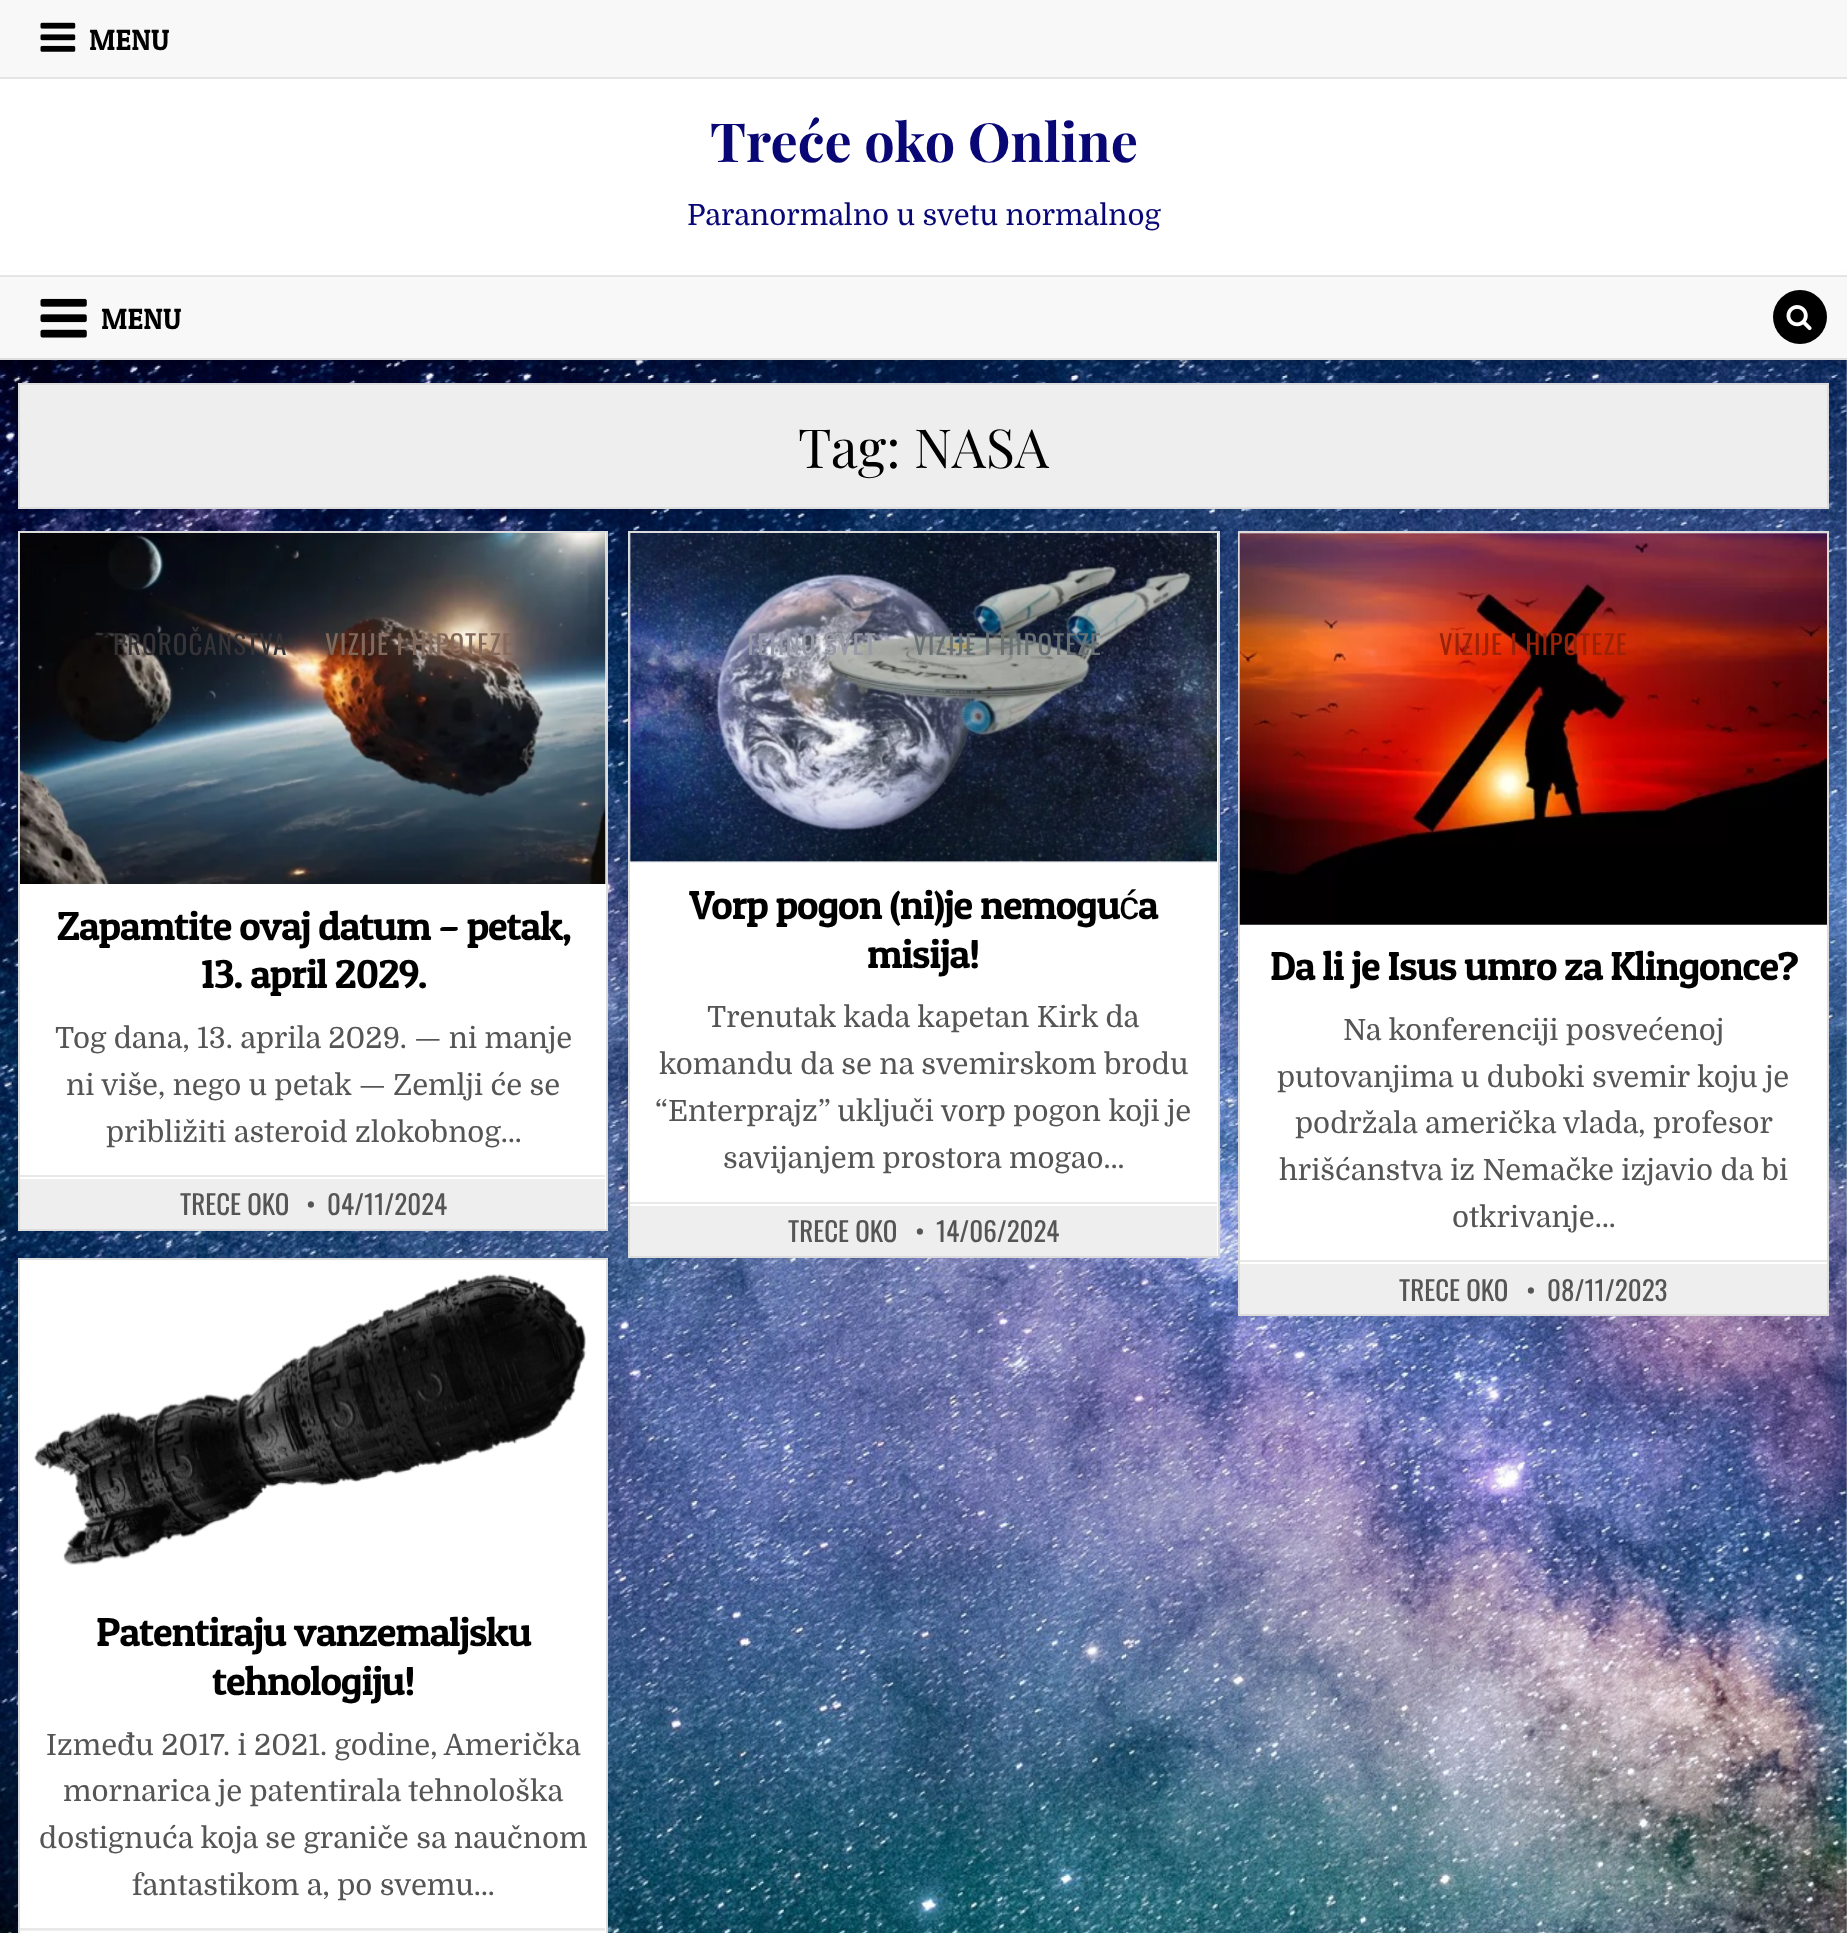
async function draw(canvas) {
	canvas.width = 1847;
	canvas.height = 1933;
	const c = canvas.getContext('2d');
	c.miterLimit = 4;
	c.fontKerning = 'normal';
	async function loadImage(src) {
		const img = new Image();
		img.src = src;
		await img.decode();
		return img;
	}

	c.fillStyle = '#fff';
	c.fillRect(0, 0, 1847, 1933);
	c.drawImage(await loadImage('img1.png'), 0, 360, 1847, 1573);
	c.fillStyle = '#f8f8f8';
	c.fillRect(0, 0, 1847, 77);
	c.fillStyle = '#e5e5e5';
	c.fillRect(0, 77, 1847, 2);
	c.drawImage(await loadImage('img2.png'), 40, 22, 36, 30);
	c.font = '29.25px Patua One';
	c.fillStyle = '#000';
	c.fillText('MENU', 89, 50);
	c.fillStyle = '#00000026';
	c.filter = 'blur(3.5px)';
	c.beginPath();
	c.rect(0, 277, 1847, 85);
	c.fill();
	c.filter = 'none';
	c.fillStyle = '#fff';
	c.fillRect(0, 272, 1847, 3);
	c.font = 'bold 54px Playfair Display';
	c.fillStyle = '#080775';
	c.fillText('Treće oko Online', 710, 162);
	c.font = '29.25px Domine';
	c.fillText('Paranormalno u svetu normalnog', 687, 225);
	for (const [x, y, w, h, color] of [
		[0, 277, 1847, 81, '#f8f8f8'],
		[0, 275, 1847, 2, '#e5e5e5'],
		[0, 358, 1847, 2, '#ddd'],
	]) {
		c.fillStyle = color;
		c.fillRect(x, y, w, h);
	}
	c.drawImage(await loadImage('img3.png'), 40, 298, 47, 40);
	c.font = '29.25px Patua One';
	c.fillStyle = '#000';
	c.fillText('MENU', 101, 329);
	c.beginPath();
	c.arc(1800, 317, 27, 0, 2 * Math.PI);
	c.fill();
	c.drawImage(await loadImage('img4.png'), 1786, 305, 26, 26);
	c.fillStyle = '#eee';
	c.beginPath();
	c.rect(19, 384, 1809, 124);
	c.fill();
	c.strokeStyle = '#ddd';
	c.lineWidth = 2;
	c.stroke();
	c.font = '54px Playfair Display';
	c.fillStyle = '#000';
	c.fillText('Tag: NASA', 798, 468);
	c.fillStyle = '#fff';
	c.beginPath();
	c.rect(19, 532, 588, 698);
	c.fill();
	c.stroke();
	c.drawImage(await loadImage('img5.png'), 20, 533, 586, 351);
	c.letterSpacing = '1.1px';
	c.font = '27px Oswald';
	c.fillStyle = '#353336';
	c.fillText('PROROČANSTVA', 113, 655);
	c.fillStyle = '#83695b';
	c.fillText('VIZIJE I HIPOTEZE', 325, 655);
	c.letterSpacing = '-1.1px';
	c.font = '40.5px Patua One';
	c.fillStyle = '#000';
	c.fillText('Zapamtite ovaj datum – petak,', 57, 940);
	c.fillText('13. april 2029.', 201, 988);
	c.letterSpacing = '0px';
	c.font = '29.25px Domine';
	c.fillStyle = '#555';
	for (const [text, x, y] of [
		['Tog dana, 13. aprila 2029. — ni manje', 55, 1048],
		['ni više, nego u petak — Zemlji će se', 66, 1095],
		['približiti asteroid zlokobnog…', 106, 1142],
	]) {
		c.fillText(text, x, y);
	}
	c.fillStyle = '#eee';
	c.fillRect(20, 1179, 585, 50);
	c.fillStyle = '#e8e8e8';
	c.fillRect(20, 1175, 585, 2);
	c.font = '27px Oswald';
	c.fillStyle = '#555';
	for (const [text, x, y] of [
		['TRECE OKO', 180, 1215],
		['•', 306, 1215],
		['04/11/2024', 327, 1215],
	]) {
		c.fillText(text, x, y);
	}
	c.fillStyle = '#fff';
	c.beginPath();
	c.rect(629, 532, 590, 725);
	c.fill();
	c.stroke();
	c.drawImage(await loadImage('img6.png'), 629, 533, 588, 330);
	c.letterSpacing = '1.1px';
	c.fillStyle = '#9699a6';
	c.fillText('TEHNO SVET', 745, 655);
	c.fillStyle = '#6a7276';
	c.fillText('VIZIJE I HIPOTEZE', 913, 655);
	c.letterSpacing = '-1.1px';
	c.font = '40.5px Patua One';
	c.fillStyle = '#000';
	c.fillText('Vorp pogon (ni)je nemogu', 689, 919);
	c.font = '40.5px Liberation Sans';
	c.fillText('ć', 1119, 919);
	c.font = '40.5px Patua One';
	c.fillText('a', 1138, 919);
	c.fillText('misija!', 867, 968);
	c.letterSpacing = '0px';
	c.font = '29.25px Domine';
	c.fillStyle = '#555';
	for (const [text, x, y] of [
		['Trenutak kada kapetan Kirk da', 707, 1027],
		['komandu da se na svemirskom brodu', 659, 1074],
		['“Enterprajz” uključi vorp pogon koji je', 655, 1121],
		['savijanjem prostora mogao…', 723, 1168],
	]) {
		c.fillText(text, x, y);
	}
	c.fillStyle = '#eee';
	c.fillRect(630, 1206, 587, 50);
	c.fillStyle = '#e8e8e8';
	c.fillRect(630, 1202, 587, 2);
	c.font = '27px Oswald';
	c.fillStyle = '#555';
	for (const [text, x, y] of [
		['TRECE OKO', 788, 1242],
		['•', 915, 1242],
		['14/06/2024', 936, 1242],
	]) {
		c.fillText(text, x, y);
	}
	c.fillStyle = '#fff';
	c.fillRect(1240, 533, 587, 727);
	c.strokeRect(1239, 532, 589, 783);
	c.drawImage(await loadImage('img7.png'), 1239, 533, 588, 392);
	c.letterSpacing = '1.1px';
	c.fillStyle = '#9c2207';
	c.fillText('VIZIJE I HIPOTEZE', 1439, 655);
	c.letterSpacing = '-1.1px';
	c.font = '40.5px Patua One';
	c.fillStyle = '#000';
	c.fillText('Da li je Isus umro za Klingonce?', 1270, 980);
	c.letterSpacing = '0px';
	c.font = '29.25px Domine';
	c.fillStyle = '#555';
	for (const [text, x, y] of [
		['Na konferenciji posvećenoj', 1343, 1040],
		['putovanjima u duboki svemir koju je', 1277, 1087],
		['podržala američka vlada, profesor', 1295, 1133],
		['hrišćanstva iz Nemačke izjavio da bi', 1279, 1180],
		['otkrivanje…', 1452, 1227],
	]) {
		c.fillText(text, x, y);
	}
	for (const [x, y, w, h, color] of [
		[1240, 1264, 587, 50, '#eee'],
		[1240, 1260, 587, 2, '#e8e8e8'],
		[1240, 1262, 587, 2, '#fff'],
	]) {
		c.fillStyle = color;
		c.fillRect(x, y, w, h);
	}
	c.font = '27px Oswald';
	c.fillStyle = '#555';
	for (const [text, x, y] of [
		['TRECE OKO', 1399, 1301],
		['•', 1526, 1301],
		['08/11/2023', 1547, 1301],
	]) {
		c.fillText(text, x, y);
	}
	c.fillStyle = '#fff';
	c.beginPath();
	c.rect(19, 1259, 588, 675);
	c.fill();
	c.stroke();
	c.drawImage(await loadImage('img8.png'), 34, 1273, 552, 292);
	c.letterSpacing = '-1.1px';
	c.font = '40.5px Patua One';
	c.fillStyle = '#000';
	c.fillText('Patentiraju vanzemaljsku', 96, 1646);
	c.fillText('tehnologiju!', 212, 1695);
	c.letterSpacing = '0px';
	c.font = '29.25px Domine';
	c.fillStyle = '#555';
	for (const [text, x, y] of [
		['Između 2017. i 2021. godine, Američka', 46, 1755],
		['mornarica je patentirala tehnološka', 63, 1801],
		['dostignuća koja se graniče sa naučnom', 39, 1848],
		['fantastikom a, po svemu…', 132, 1895],
	]) {
		c.fillText(text, x, y);
	}
	c.fillStyle = '#eee';
	c.fillRect(20, 1930, 585, 1);
	c.fillStyle = '#e8e8e8';
	c.fillRect(20, 1928, 585, 2);
}

draw(document.querySelector('canvas'));
